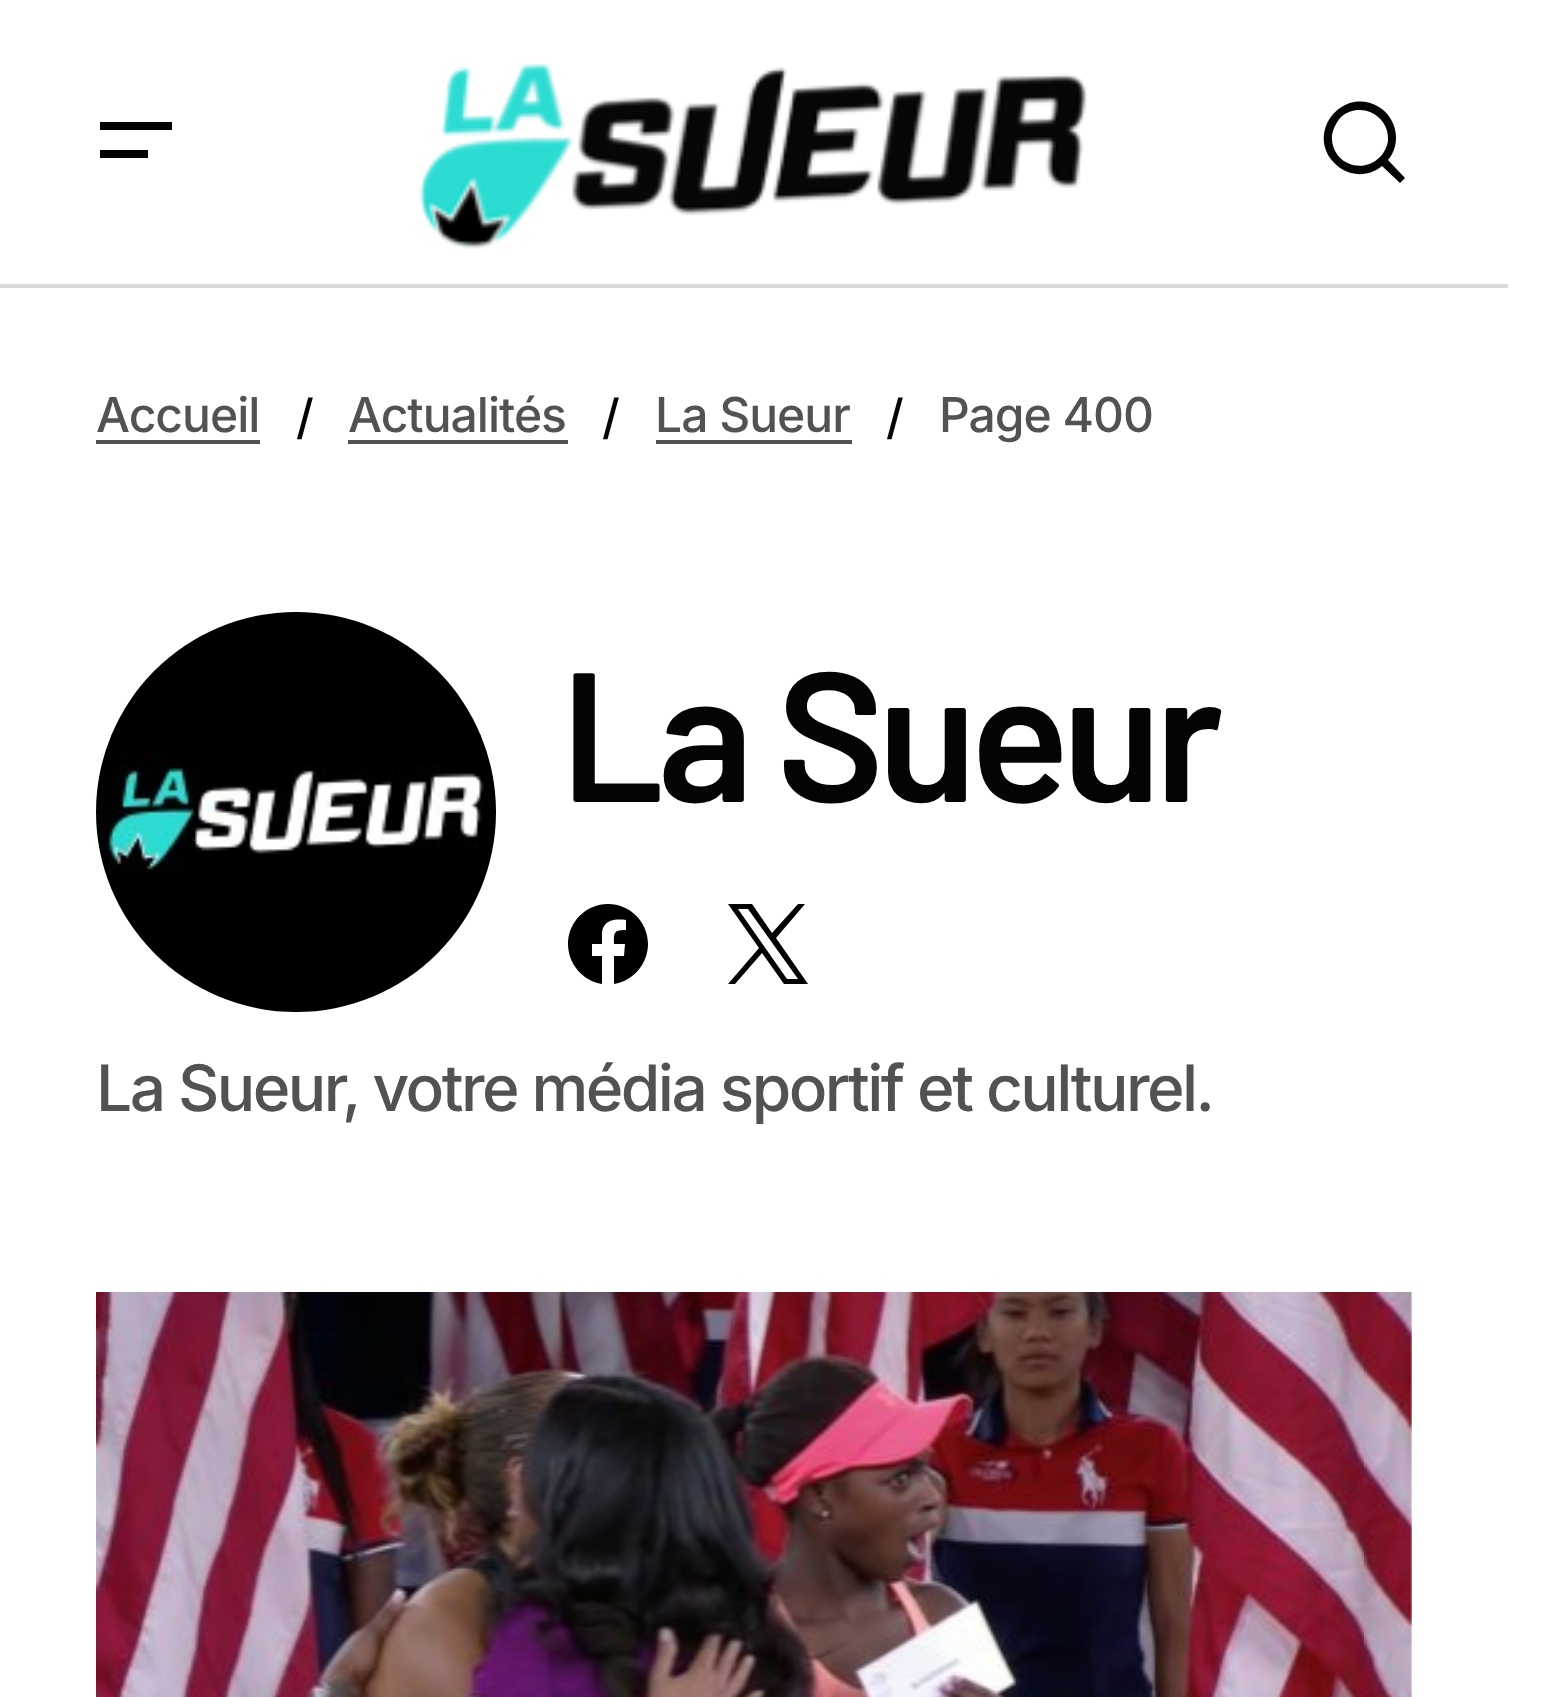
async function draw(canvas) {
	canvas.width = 1566;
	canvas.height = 1697;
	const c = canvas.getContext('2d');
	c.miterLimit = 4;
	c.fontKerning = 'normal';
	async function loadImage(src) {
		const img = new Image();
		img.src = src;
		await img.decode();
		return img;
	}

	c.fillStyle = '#fff';
	c.fillRect(0, 0, 1566, 1697);
	c.fillStyle = '#040404';
	c.beginPath();
	c.moveTo(100, 122);
	c.lineTo(172, 122);
	c.lineTo(172, 130);
	c.lineTo(100, 130);
	c.closePath();
	c.moveTo(100, 150);
	c.lineTo(148, 150);
	c.lineTo(148, 158);
	c.lineTo(100, 158);
	c.closePath();
	c.fill();
	c.drawImage(await loadImage('img1.png'), 419, 63, 668, 186);
	c.beginPath();
	c.moveTo(1388, 160);
	c.lineTo(1405, 178);
	c.lineTo(1400, 183);
	c.lineTo(1382, 166);
	c.bezierCurveTo(1374, 173, 1362, 176, 1351, 173);
	c.bezierCurveTo(1343, 171, 1335, 165, 1330, 158);
	c.bezierCurveTo(1309, 126, 1346, 87, 1379, 107);
	c.bezierCurveTo(1397, 118, 1402, 144, 1388, 160);
	c.closePath();
	c.moveTo(1380, 157);
	c.bezierCurveTo(1384, 153, 1387, 147, 1388, 141);
	c.bezierCurveTo(1390, 115, 1359, 100, 1340, 118);
	c.bezierCurveTo(1336, 123, 1333, 129, 1332, 135);
	c.bezierCurveTo(1330, 162, 1361, 176, 1380, 157);
	c.closePath();
	c.fill();
	c.fillStyle = '#d9d9d9';
	c.fillRect(0, 284, 1508, 4);
	c.letterSpacing = '-1px';
	c.font = '500 48px Inter';
	c.fillStyle = '#525252';
	c.fillText('Accueil', 96, 432);
	c.fillRect(96, 440, 164, 4);
	c.fillStyle = '#040404';
	c.fillText('/', 296, 434);
	c.fillStyle = '#525252';
	c.fillText('Actualités', 348, 432);
	c.fillRect(348, 440, 220, 4);
	c.fillStyle = '#040404';
	c.fillText('/', 602, 434);
	c.fillStyle = '#525252';
	c.fillText('La Sueur', 655, 432);
	c.fillRect(656, 440, 196, 4);
	c.fillStyle = '#040404';
	c.fillText('/', 886, 434);
	c.fillStyle = '#525252';
	c.fillText('Page 400', 939, 432);
	c.drawImage(await loadImage('img2.png'), 96, 612, 400, 400);
	c.letterSpacing = '-7.25px';
	c.font = '600 184px Barlow';
	c.fillStyle = '#040404';
	c.fillText('La Sueur', 560, 802);
	c.fillStyle = '#000';
	c.beginPath();
	c.moveTo(608, 904);
	c.bezierCurveTo(586, 904, 568, 922, 568, 944);
	c.bezierCurveTo(568, 964, 583, 981, 602, 984);
	c.lineTo(602, 956);
	c.lineTo(592, 956);
	c.lineTo(592, 944);
	c.lineTo(602, 944);
	c.lineTo(602, 932);
	c.bezierCurveTo(604, 919, 616, 919, 626, 920);
	c.lineTo(626, 930);
	c.bezierCurveTo(613, 930, 614, 933, 614, 944);
	c.lineTo(625, 944);
	c.lineTo(624, 956);
	c.lineTo(614, 956);
	c.lineTo(614, 984);
	c.bezierCurveTo(633, 981, 648, 964, 648, 944);
	c.bezierCurveTo(648, 922, 630, 904, 608, 904);
	c.closePath();
	c.fill();
	c.beginPath();
	c.moveTo(776, 938);
	c.lineTo(805, 904);
	c.lineTo(798, 904);
	c.lineTo(772, 933);
	c.lineTo(752, 904);
	c.lineTo(728, 904);
	c.lineTo(759, 948);
	c.lineTo(728, 984);
	c.lineTo(735, 984);
	c.lineTo(762, 953);
	c.lineTo(784, 984);
	c.lineTo(808, 984);
	c.closePath();
	c.moveTo(766, 949);
	c.lineTo(738, 909);
	c.lineTo(748, 909);
	c.lineTo(798, 979);
	c.lineTo(787, 979);
	c.closePath();
	c.fill();
	c.letterSpacing = '-2.55px';
	c.font = '500 64px Inter';
	c.fillStyle = '#525252';
	c.fillText('La Sueur, votre média sportif et culturel.', 96, 1111);
	c.drawImage(await loadImage('img3.png'), 96, 1292, 1316, 405);
}

draw(document.querySelector('canvas'));
